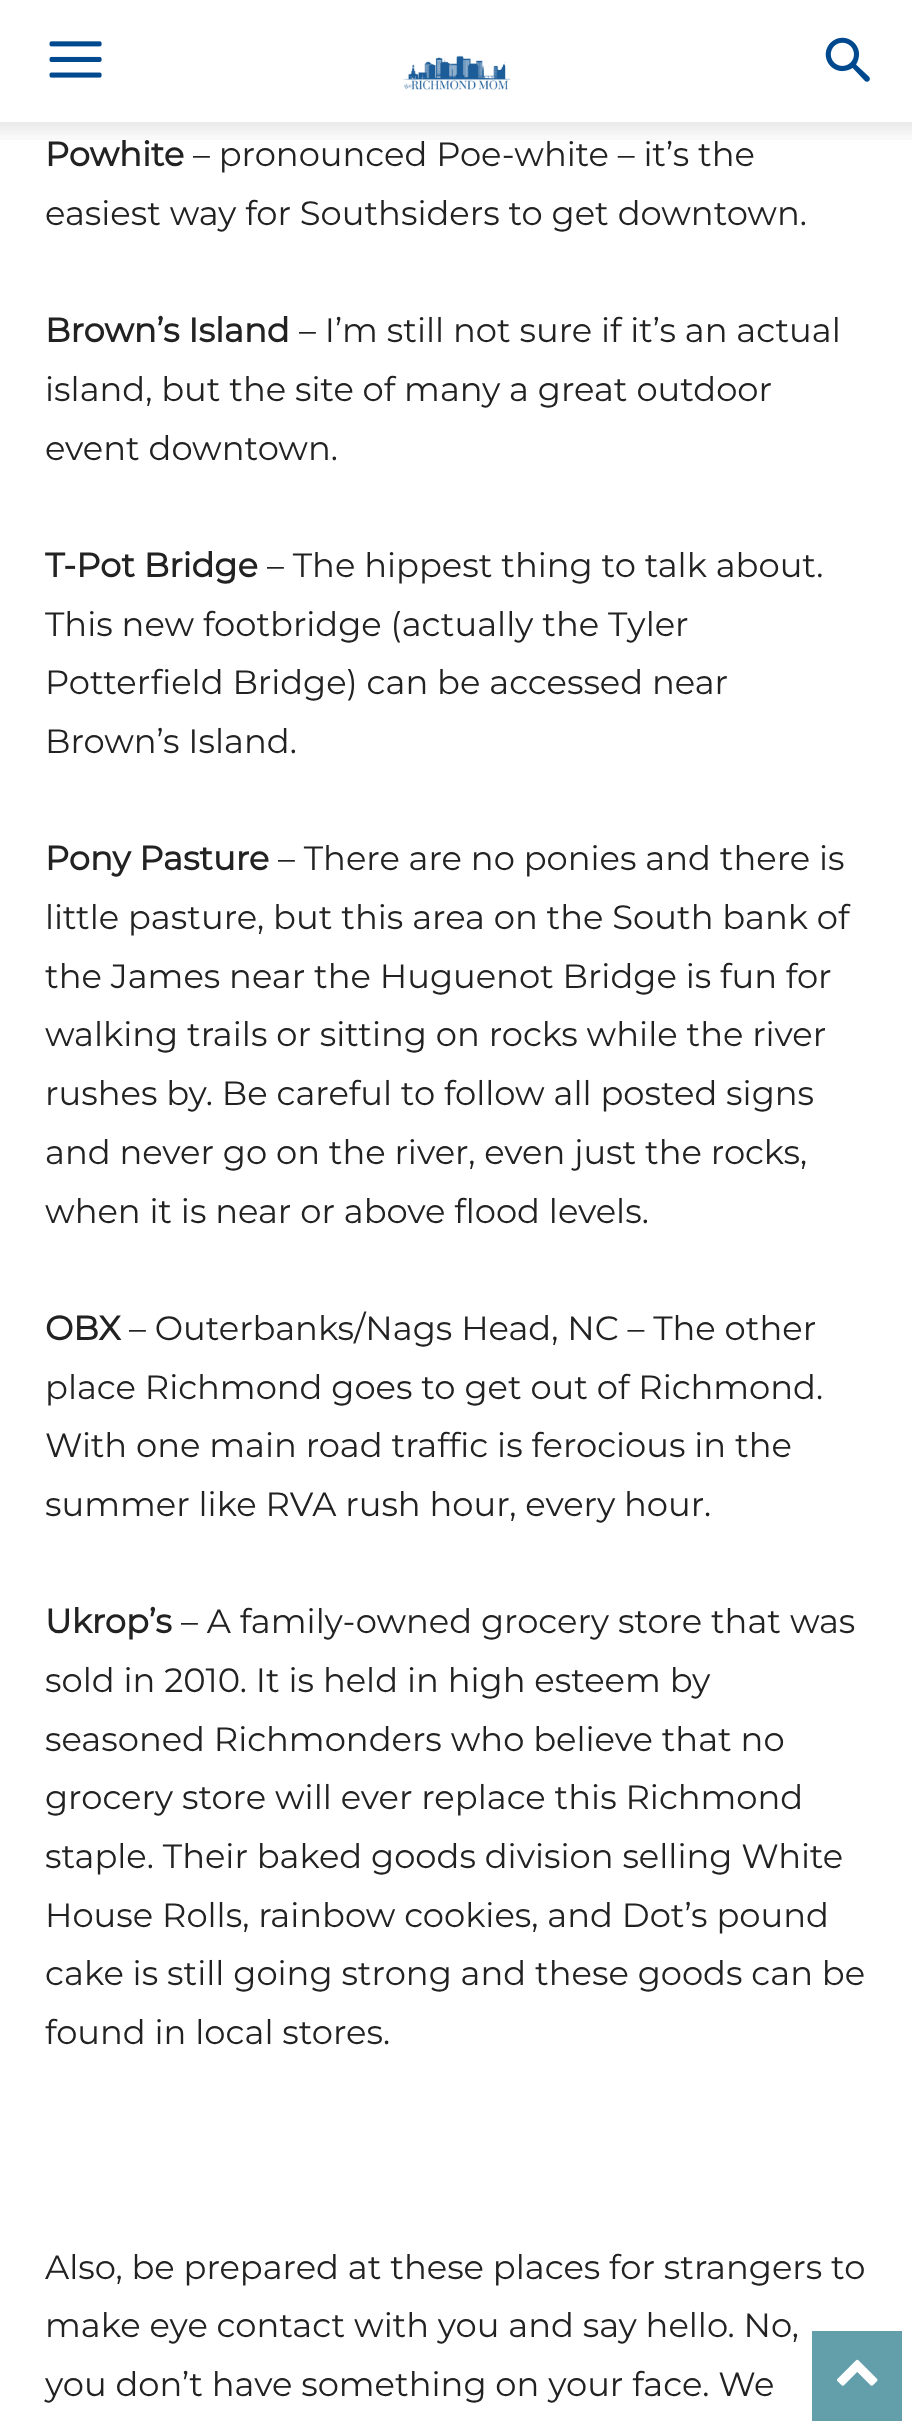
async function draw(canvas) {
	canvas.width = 912;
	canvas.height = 2428;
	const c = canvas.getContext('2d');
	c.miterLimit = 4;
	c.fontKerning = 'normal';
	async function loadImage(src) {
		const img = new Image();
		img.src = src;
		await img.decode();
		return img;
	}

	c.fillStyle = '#fff';
	c.fillRect(0, 0, 912, 2428);
	c.drawImage(await loadImage('img1.png'), 49, 41, 53, 37);
	c.drawImage(await loadImage('img2.png'), 403, 55, 108, 35);
	c.drawImage(await loadImage('img3.png'), 825, 37, 45, 45);
	c.drawImage(await loadImage('img4.png'), 0, 122, 912, 18);
	c.font = 'bold 33.75px Montserrat';
	c.fillStyle = '#222';
	c.fillText('Powhite', 45, 166);
	c.font = '100 33.75px Montserrat';
	c.fillText('– pronounced Poe-white – it’s the', 193, 166);
	c.fillText('easiest way for Southsiders to get downtown.', 45, 225);
	c.font = 'bold 33.75px Montserrat';
	c.fillText('Brown’s Island', 45, 342);
	c.font = '100 33.75px Montserrat';
	for (const [text, x, y] of [
		['– I’m still not sure if it’s an actual', 299, 342],
		['island, but the site of many a great outdoor', 45, 401],
		['event downtown.', 45, 460],
	]) {
		c.fillText(text, x, y);
	}
	c.font = 'bold 33.75px Montserrat';
	c.fillText('T-Pot Bridge', 45, 577);
	c.font = '100 33.75px Montserrat';
	for (const [text, x, y] of [
		['– The hippest thing to talk about.', 267, 577],
		['This new footbridge (actually the Tyler', 45, 636],
		['Potterfield Bridge) can be accessed near', 45, 694],
		['Brown’s Island.', 45, 753],
	]) {
		c.fillText(text, x, y);
	}
	c.font = 'bold 33.75px Montserrat';
	c.fillText('Pony Pasture', 45, 870);
	c.font = '100 33.75px Montserrat';
	for (const [text, x, y] of [
		['– There are no ponies and there is', 278, 870],
		['little pasture, but this area on the South bank of', 45, 929],
		['the James near the Huguenot Bridge is fun for', 45, 988],
		['walking trails or sitting on rocks while the river', 45, 1046],
		['rushes by. Be careful to follow all posted signs', 45, 1105],
		['and never go on the river, even just the rocks,', 45, 1164],
		['when it is near or above flood levels.', 45, 1223],
	]) {
		c.fillText(text, x, y);
	}
	c.font = 'bold 33.75px Montserrat';
	c.fillText('OBX', 45, 1340);
	c.font = '100 33.75px Montserrat';
	for (const [text, x, y] of [
		['– Outerbanks/Nags Head, NC – The other', 129, 1340],
		['place Richmond goes to get out of Richmond.', 45, 1399],
		['With one main road traffic is ferocious in the', 45, 1457],
		['summer like RVA rush hour, every hour.', 45, 1516],
	]) {
		c.fillText(text, x, y);
	}
	c.font = 'bold 33.75px Montserrat';
	c.fillText('Ukrop’s', 45, 1633);
	c.font = '100 33.75px Montserrat';
	for (const [text, x, y] of [
		['– A family-owned grocery store that was', 181, 1633],
		['sold in 2010. It is held in high esteem by', 45, 1692],
		['seasoned Richmonders who believe that no', 45, 1751],
		['grocery store will ever replace this Richmond', 45, 1809],
		['staple. Their baked goods division selling White', 45, 1868],
		['House Rolls, rainbow cookies, and Dot’s pound', 45, 1927],
		['cake is still going strong and these goods can be', 45, 1985],
		['found in local stores.', 45, 2044],
		['Also, be prepared at these places for strangers to', 45, 2279],
		['make eye contact with you and say hello. No,', 45, 2337],
		['you don’t have something on your face. We', 45, 2396],
	]) {
		c.fillText(text, x, y);
	}
	c.fillStyle = '#639fab';
	c.fillRect(812, 2331, 90, 90);
	c.drawImage(await loadImage('img5.png'), 837, 2359, 41, 27);
}

draw(document.querySelector('canvas'));
